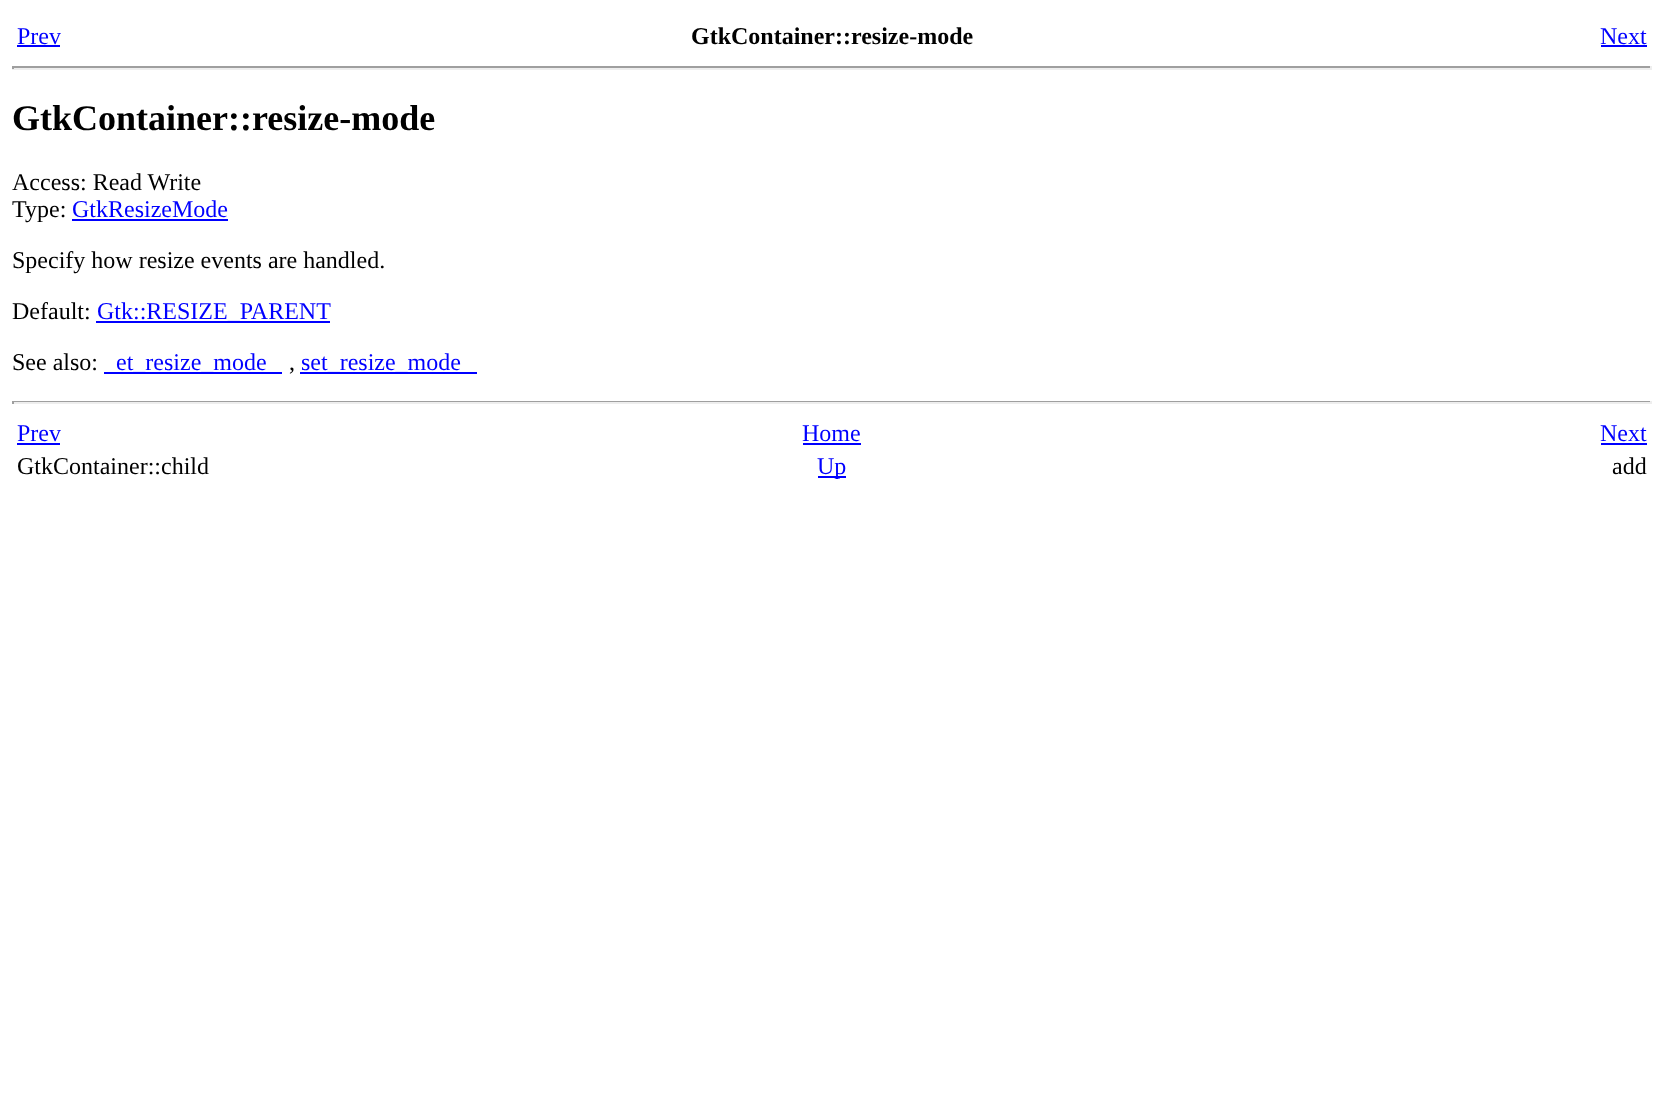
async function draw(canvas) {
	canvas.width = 1663;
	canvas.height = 1097;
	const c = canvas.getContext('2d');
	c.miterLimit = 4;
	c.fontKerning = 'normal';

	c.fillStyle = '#fff';
	c.fillRect(0, 0, 1663, 1097);
	c.font = '24px Liberation Serif';
	c.fillStyle = '#00f';
	c.fillText('Prev', 17, 44);
	c.fillRect(17, 45, 43, 2);
	c.font = 'bold 24px Liberation Serif';
	c.fillStyle = '#000';
	c.fillText('GtkContainer::resize-mode', 691, 44);
	c.font = '24px Liberation Serif';
	c.fillStyle = '#00f';
	c.fillText('Next', 1600, 44);
	for (const [x, y, w, h, color] of [
		[1601, 45, 46, 2, '#00f'],
		[12, 66, 1640, 2, '#9f9f9f'],
		[1650, 66, 2, 3, '#eee'],
		[12, 68, 1640, 2, '#eee'],
		[12, 66, 2, 3, '#9f9f9f'],
	]) {
		c.fillStyle = color;
		c.fillRect(x, y, w, h);
	}
	c.font = 'bold 36px Liberation Serif';
	c.fillStyle = '#000';
	c.fillText('GtkContainer::resize-mode', 12, 130);
	c.font = '24px Liberation Serif';
	c.fillText('Access: Read Write', 12, 190);
	c.fillText('Type:', 12, 217);
	c.fillStyle = '#00f';
	c.fillText('GtkResizeMode', 72, 217);
	c.fillRect(72, 219, 156, 2);
	c.fillStyle = '#000';
	c.fillText('Specify how resize events are handled.', 12, 268);
	c.fillText('Default:', 12, 319);
	c.fillStyle = '#00f';
	c.fillRect(96, 321, 234, 2);
	c.fillText('Gtk::RESIZE_PARENT', 97, 319);
	c.fillStyle = '#000';
	c.fillText('See also:', 12, 370);
	c.fillStyle = '#00f';
	c.fillRect(104, 372, 178, 2);
	c.fillText('et_resize_mode', 116, 370);
	c.fillStyle = '#000';
	c.fillText(',', 289, 370);
	c.fillStyle = '#00f';
	c.fillRect(300, 372, 177, 2);
	c.fillText('set_resize_mode', 301, 370);
	for (const [x, y, w, h, color] of [
		[12, 401, 1640, 1, '#9f9f9f'],
		[1650, 401, 2, 3, '#eee'],
		[12, 402, 1640, 2, '#eee'],
		[12, 401, 2, 3, '#9f9f9f'],
	]) {
		c.fillStyle = color;
		c.fillRect(x, y, w, h);
	}
	c.fillStyle = '#00f';
	c.fillText('Prev', 17, 441);
	c.fillRect(17, 443, 43, 2);
	c.fillText('Home', 802, 441);
	c.fillRect(803, 443, 58, 2);
	c.fillText('Next', 1600, 441);
	c.fillRect(1601, 443, 46, 2);
	c.fillStyle = '#000';
	c.fillText('GtkContainer::child', 17, 474);
	c.fillStyle = '#00f';
	c.fillRect(818, 476, 28, 2);
	c.fillText('Up', 817, 474);
	c.fillStyle = '#000';
	c.fillText('add', 1612, 474);
}

draw(document.querySelector('canvas'));
